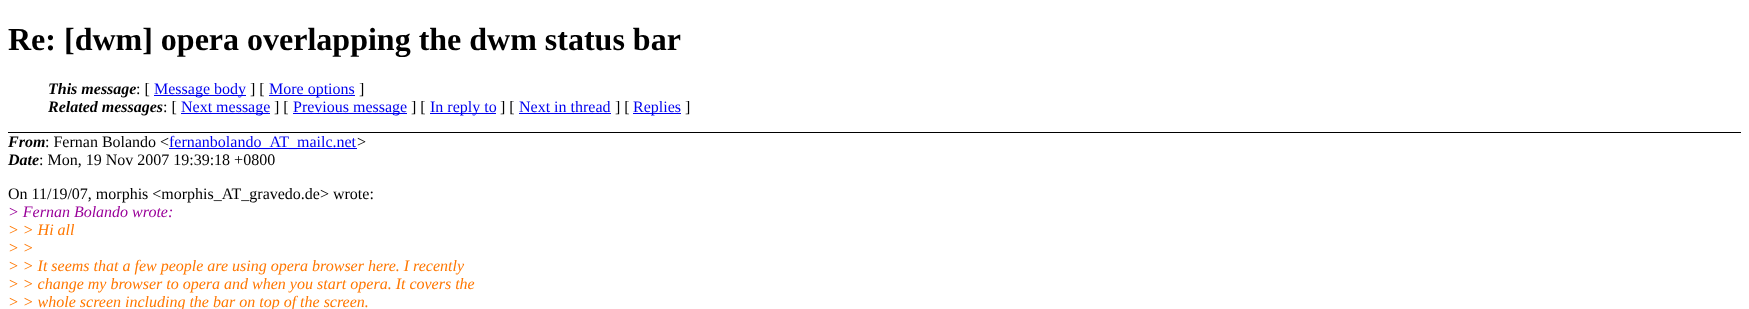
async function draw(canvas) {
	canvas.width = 1749;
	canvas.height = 309;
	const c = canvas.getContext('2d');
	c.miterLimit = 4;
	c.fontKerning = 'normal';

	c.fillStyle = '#fff';
	c.fillRect(0, 0, 1749, 309);
	c.fillStyle = '#000';
	c.fillRect(8, 132, 1733, 1);
	c.font = 'bold 32px Liberation Serif';
	c.fillText('Re: [dwm] opera overlapping the dwm status bar', 8, 50);
	c.font = 'italic bold 16px Liberation Serif';
	c.fillText('This message', 48, 94);
	c.font = '16px Liberation Serif';
	c.fillText(': [', 136, 94);
	c.fillStyle = '#00e';
	c.fillRect(154, 95, 92, 1);
	c.fillText('Message body', 154, 94);
	c.fillStyle = '#000';
	c.fillText('] [', 250, 94);
	c.fillStyle = '#00e';
	c.fillRect(269, 95, 86, 1);
	c.fillText('More options', 269, 94);
	c.fillStyle = '#000';
	c.fillText(']', 359, 94);
	c.font = 'italic bold 16px Liberation Serif';
	c.fillText('Related messages', 48, 112);
	c.font = '16px Liberation Serif';
	c.fillText(': [', 163, 112);
	c.fillStyle = '#00e';
	c.fillRect(181, 113, 89, 1);
	c.fillText('Next message', 181, 112);
	c.fillStyle = '#000';
	c.fillText('] [', 274, 112);
	c.fillStyle = '#00e';
	c.fillRect(293, 113, 114, 1);
	c.fillText('Previous message', 293, 112);
	c.fillStyle = '#000';
	c.fillText('] [', 411, 112);
	c.fillStyle = '#00e';
	c.fillRect(430, 113, 66, 1);
	c.fillText('In reply to', 430, 112);
	c.fillStyle = '#000';
	c.fillText('] [', 500, 112);
	c.fillStyle = '#00e';
	c.fillText('Next in thread', 519, 112);
	c.fillRect(519, 113, 92, 1);
	c.fillStyle = '#000';
	c.fillText('] [', 615, 112);
	c.fillStyle = '#00e';
	c.fillRect(633, 113, 48, 1);
	c.fillText('Replies', 633, 112);
	c.fillStyle = '#000';
	c.fillText(']', 685, 112);
	c.font = 'italic bold 16px Liberation Serif';
	c.fillText('From', 8, 147);
	c.font = '16px Liberation Serif';
	c.fillText(': Fernan Bolando <', 45, 147);
	c.fillStyle = '#00e';
	c.fillRect(169, 148, 188, 1);
	c.fillText('fernanbolando_AT_mailc.net', 169, 147);
	c.fillStyle = '#000';
	c.fillText('>', 357, 147);
	c.font = 'italic bold 16px Liberation Serif';
	c.fillText('Date', 8, 165);
	c.font = '16px Liberation Serif';
	c.fillText(': Mon, 19 Nov 2007 19:39:18 +0800', 39, 165);
	c.fillText('On 11/19/07, morphis <morphis_AT_gravedo.de> wrote:', 8, 199);
	c.font = 'italic 16px Liberation Serif';
	c.fillStyle = '#909';
	c.fillText('> Fernan Bolando wrote:', 8, 217);
	c.fillStyle = '#f70';
	for (const [text, x, y] of [
		['> > Hi all', 8, 235],
		['> >', 8, 253],
		['> > It seems that a few people are using opera browser here. I recently', 8, 271],
		['> > change my browser to opera and when you start opera. It covers the', 8, 289],
		['> > whole screen including the bar on top of the screen.', 8, 307],
	]) {
		c.fillText(text, x, y);
	}
}

draw(document.querySelector('canvas'));
